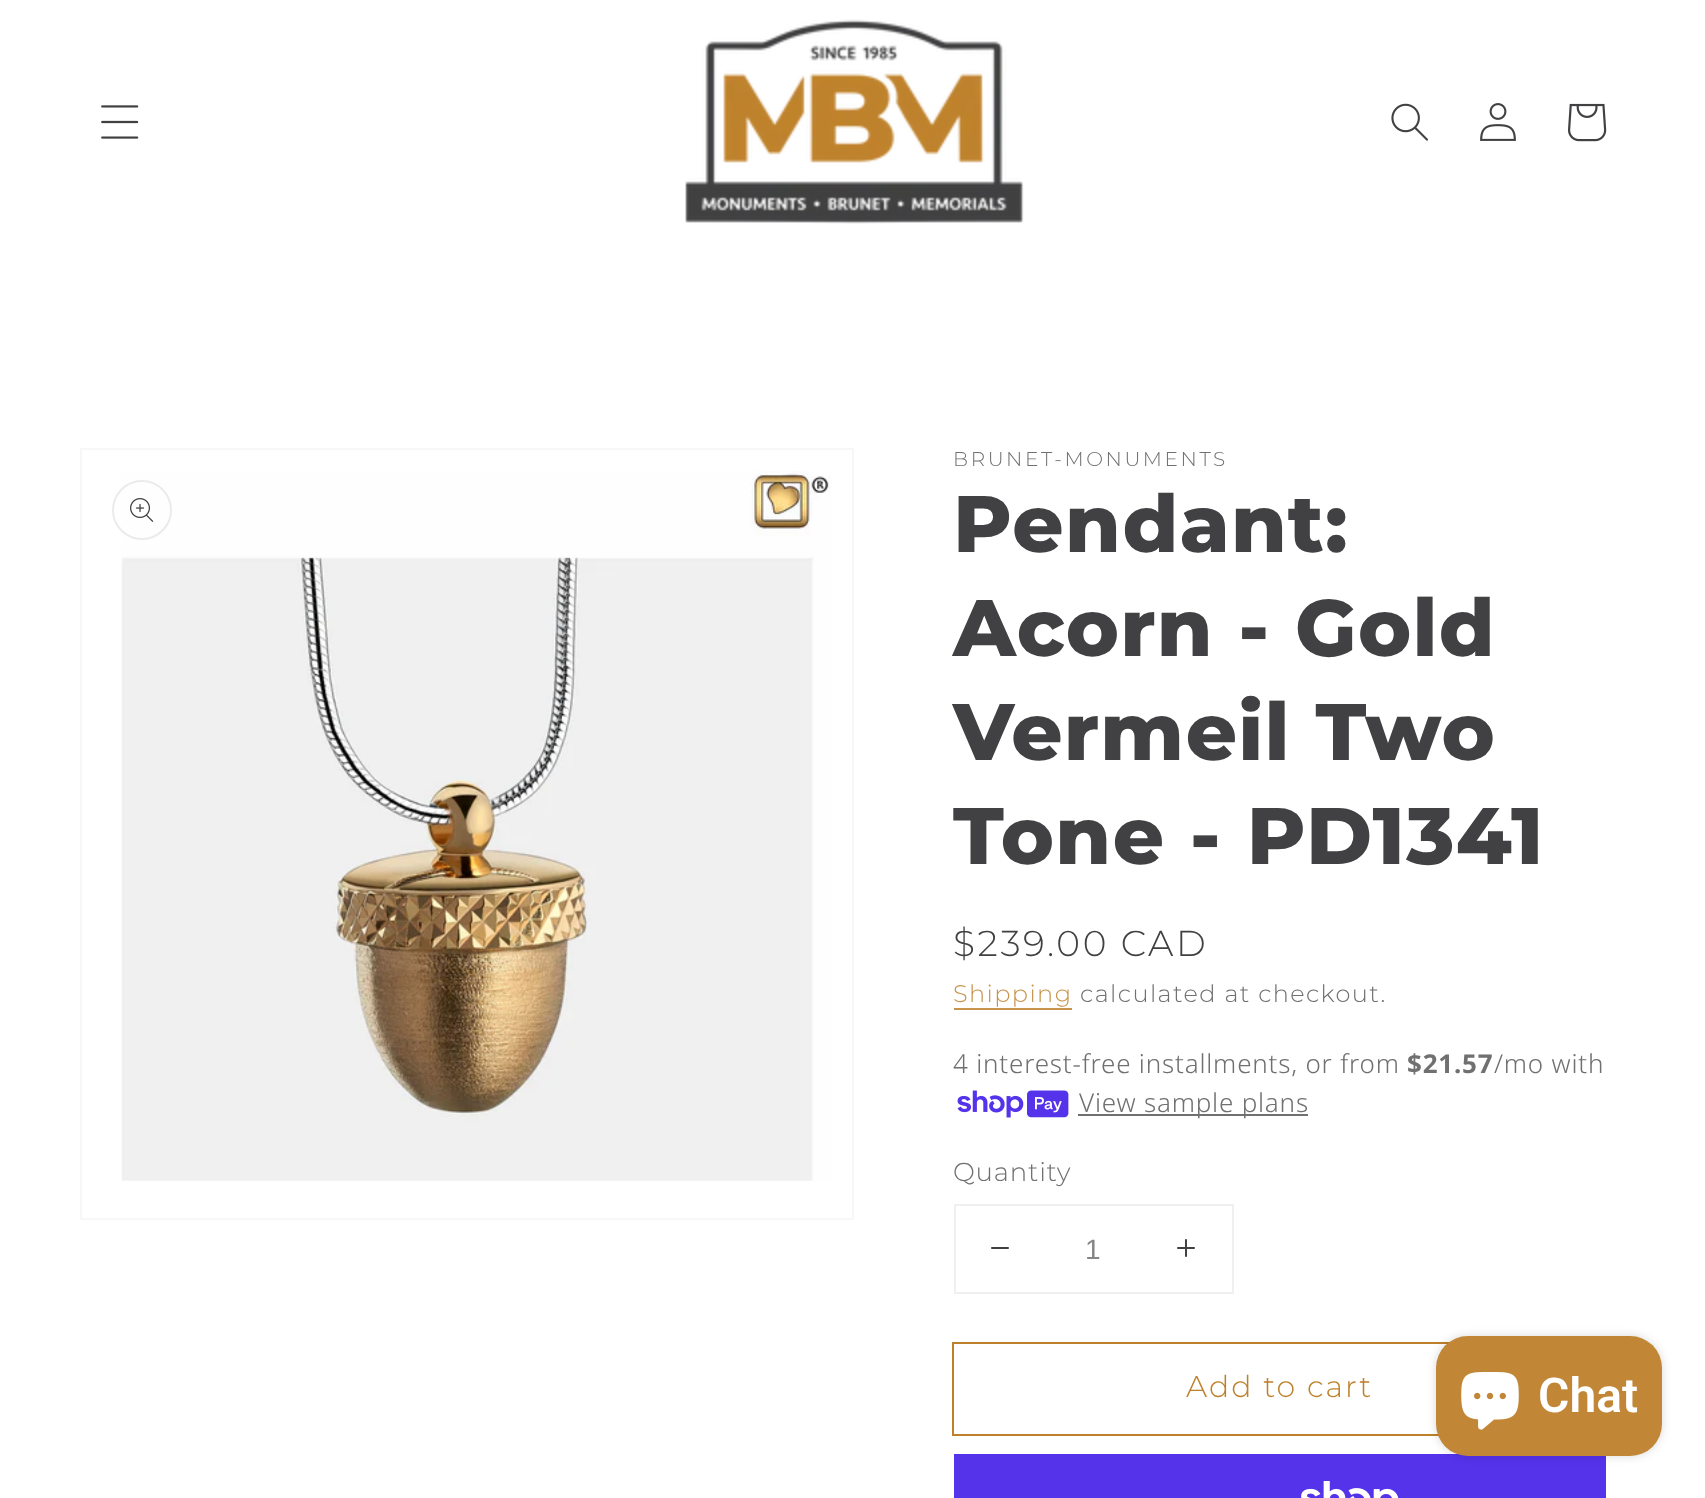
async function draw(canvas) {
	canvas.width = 1705;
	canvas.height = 1498;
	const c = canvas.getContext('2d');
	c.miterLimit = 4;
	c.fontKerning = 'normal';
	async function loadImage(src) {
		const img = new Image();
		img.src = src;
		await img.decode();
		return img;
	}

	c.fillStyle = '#fff';
	c.fillRect(0, 0, 1705, 1498);
	c.drawImage(await loadImage('img1.png'), 101, 105, 38, 34);
	c.drawImage(await loadImage('img2.png'), 685, 19, 339, 205);
	c.drawImage(await loadImage('img3.png'), 1391, 103, 37, 38);
	c.drawImage(await loadImage('img4.png'), 1480, 103, 36, 38);
	c.drawImage(await loadImage('img5.png'), 1568, 103, 39, 39);
	c.strokeStyle = '#f7f7f7';
	c.lineWidth = 2;
	c.strokeRect(81, 449, 772, 770);
	c.drawImage(await loadImage('img6.png'), 121, 471, 710, 710);
	c.beginPath();
	c.arc(142, 510, 29, 0, 2 * Math.PI);
	c.strokeStyle = '#ebebeb';
	c.stroke();
	c.drawImage(await loadImage('img7.png'), 130, 498, 24, 24);
	c.letterSpacing = '2.6px';
	c.font = '300 20px Montserrat';
	c.fillStyle = '#717071';
	c.fillText('BRUNET-MONUMENTS', 953, 466);
	c.letterSpacing = '1.25px';
	c.font = '800 80px Montserrat';
	c.fillStyle = '#414042';
	for (const [text, x, y] of [
		['Pendant:', 953, 552],
		['Acorn - Gold', 953, 656],
		['Vermeil Two', 953, 760],
		['Tone - PD1341', 953, 864],
	]) {
		c.fillText(text, x, y);
	}
	c.letterSpacing = '2.6px';
	c.font = '300 36px Montserrat';
	c.fillText('$239.00 CAD', 953, 956);
	c.letterSpacing = '1.4px';
	c.font = '300 24px Montserrat';
	c.fillStyle = '#c8944b';
	c.fillText('Shipping', 953, 1002);
	c.fillRect(954, 1008, 118, 2);
	c.fillStyle = '#717071';
	c.fillText('calculated at checkout.', 1080, 1002);
	c.letterSpacing = '0.8px';
	c.font = '300 26px Noto Sans';
	c.fillText('4 interest-free installments, or from', 953, 1073);
	c.font = 'bold 26px Noto Sans';
	c.fillText('$21.57', 1407, 1073);
	c.font = '300 26px Noto Sans';
	c.fillText('/mo with', 1494, 1073);
	c.drawImage(await loadImage('img8.png'), 957, 1090, 112, 28);
	c.fillRect(1078, 1114, 230, 2);
	c.fillText('View sample plans', 1079, 1112);
	c.font = '300 26px Montserrat';
	c.fillText('Quantity', 953, 1181);
	c.strokeStyle = '#f0f0f0';
	c.strokeRect(955, 1205, 278, 88);
	c.drawImage(await loadImage('img9.png'), 991, 1247, 18, 2);
	c.letterSpacing = '0px';
	c.font = '28px Liberation Sans';
	c.fillStyle = '#868686';
	c.fillText('1', 1085, 1259);
	c.drawImage(await loadImage('img10.png'), 1177, 1239, 18, 18);
	c.strokeStyle = '#be812b';
	c.strokeRect(953, 1343, 654, 92);
	c.letterSpacing = '2px';
	c.font = '300 30px Montserrat';
	c.fillStyle = '#be812b';
	c.fillText('Add to cart', 1186, 1397);
	c.fillStyle = '#5433eb';
	c.fillRect(954, 1454, 652, 44);
	c.drawImage(await loadImage('img11.png'), 1301, 1481, 98, 17);
	c.fillStyle = '#00000026';
	c.filter = 'blur(5px)';
	c.beginPath();
	c.roundRect(1436, 1336, 226, 120, 32);
	c.fill();
	c.filter = 'none';
	c.fillStyle = '#c18736';
	c.beginPath();
	c.roundRect(1436, 1336, 226, 120, 32);
	c.fill();
	c.drawImage(await loadImage('img12.png'), 1461, 1372, 58, 58);
	c.letterSpacing = '0px';
	c.font = '600 48px Roboto';
	c.fillStyle = '#fff';
	c.fillText('Chat', 1538, 1412);
}

draw(document.querySelector('canvas'));
